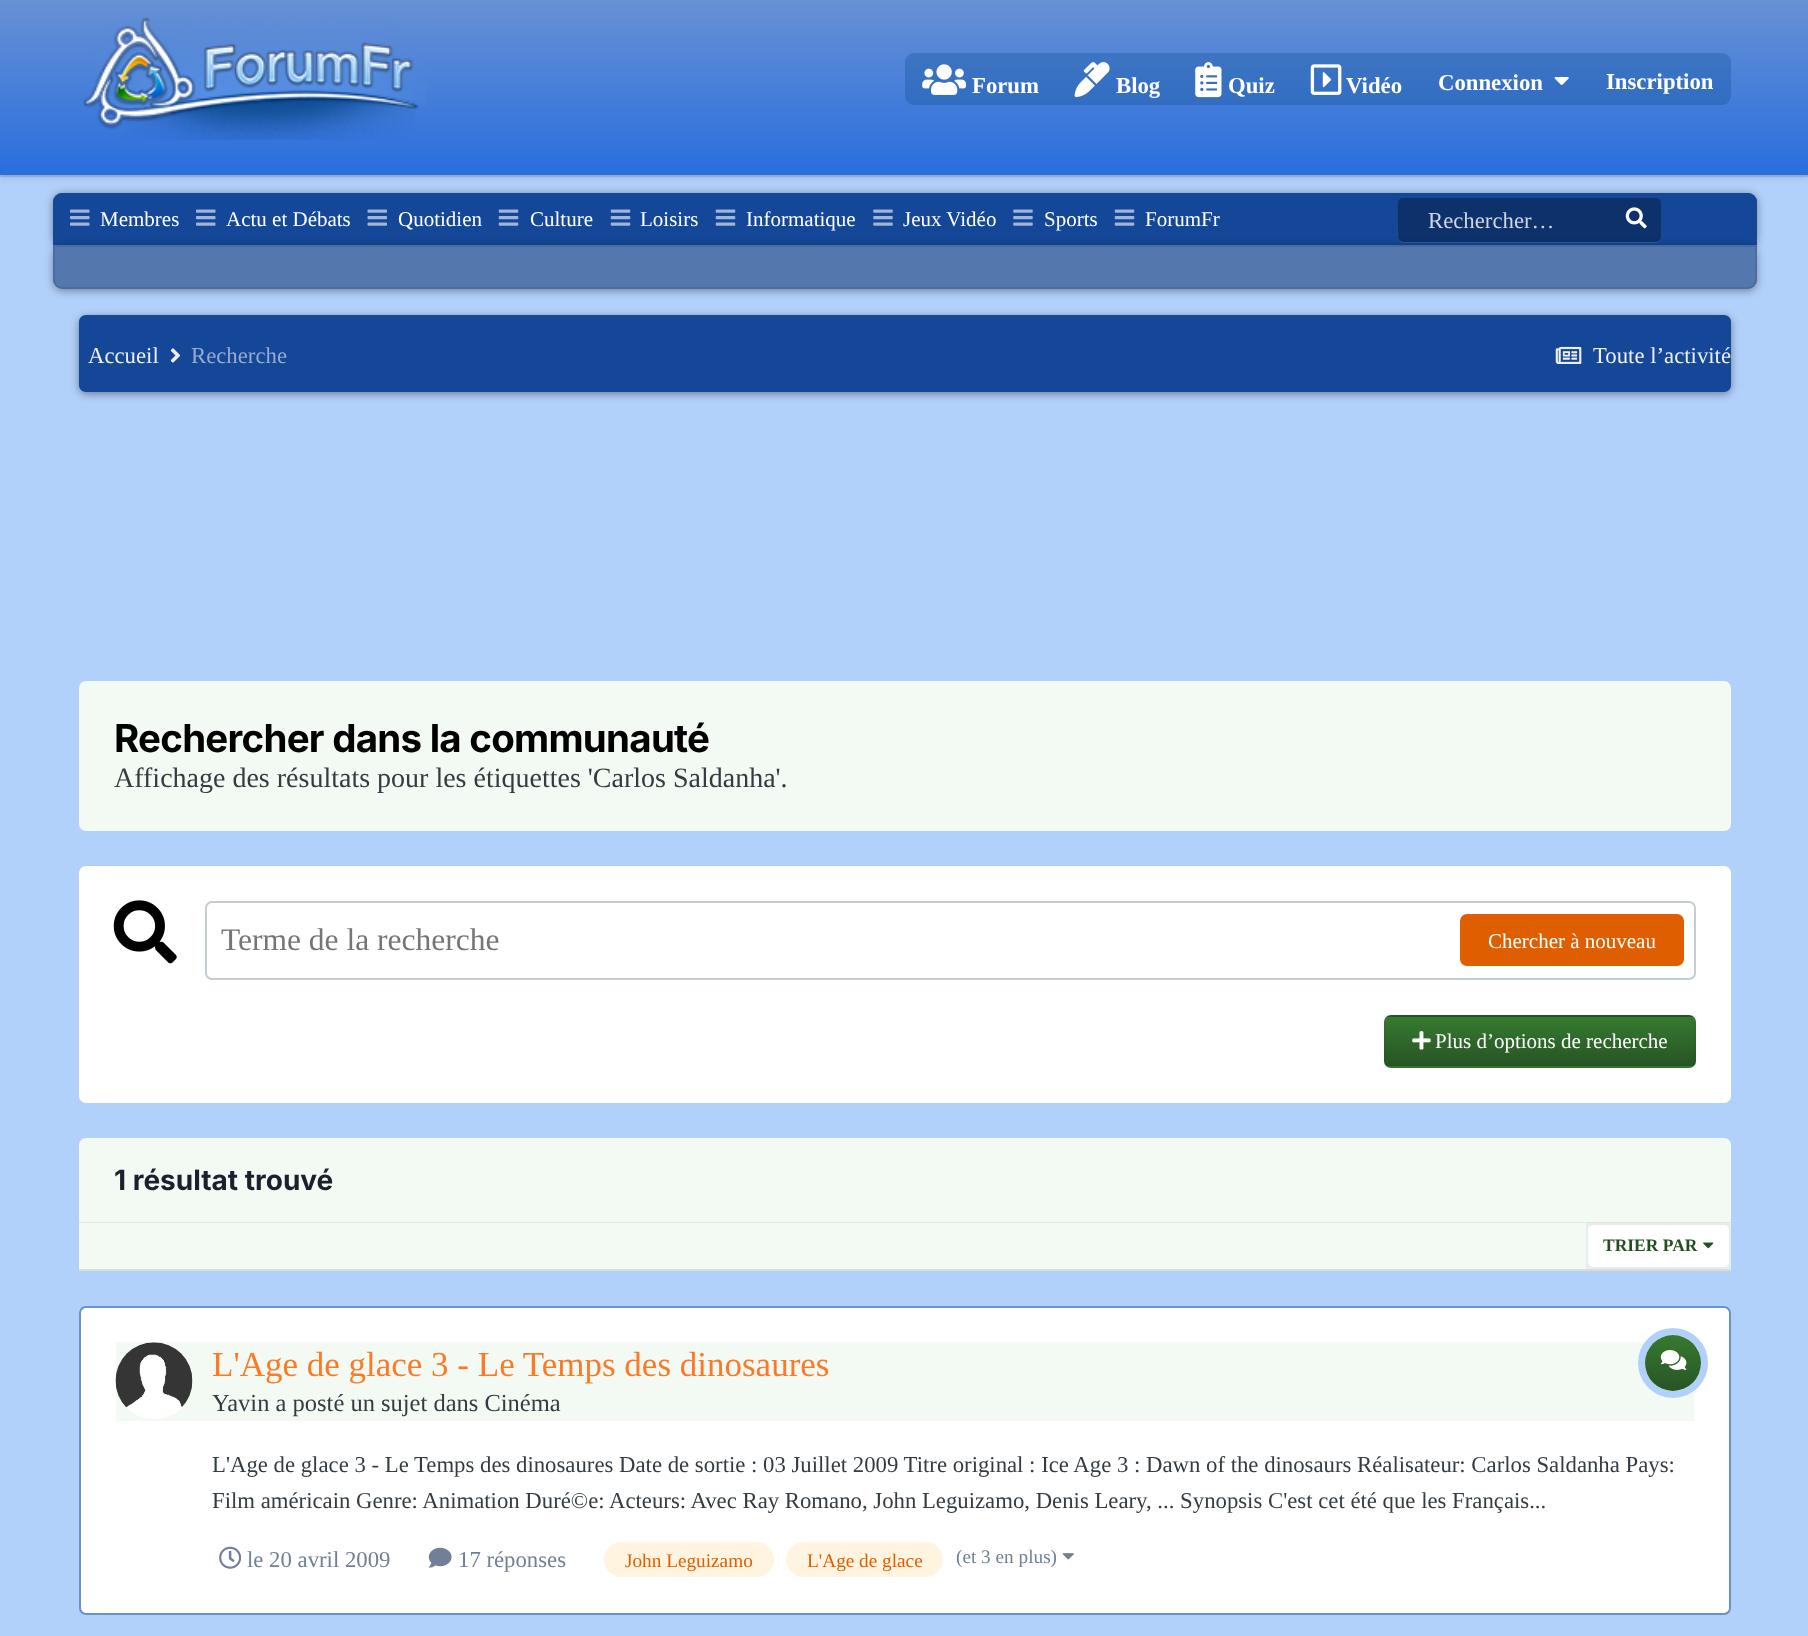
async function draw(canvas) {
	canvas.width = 1808;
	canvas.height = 1636;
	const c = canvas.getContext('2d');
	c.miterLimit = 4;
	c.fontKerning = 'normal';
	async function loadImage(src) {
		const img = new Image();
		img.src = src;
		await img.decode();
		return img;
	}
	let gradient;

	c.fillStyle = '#b2d1fa';
	c.fillRect(0, 0, 1808, 1636);
	c.fillStyle = '#a0bce1';
	c.beginPath();
	c.moveTo(0, 175);
	c.lineTo(0, 177);
	c.lineTo(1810, 177);
	c.lineTo(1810, 2);
	c.lineTo(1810, 175);
	c.closePath();
	c.fill();
	c.fillStyle = '#00000026';
	c.filter = 'blur(3.5px)';
	c.beginPath();
	c.rect(0, 2, 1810, 175);
	c.fill();
	c.filter = 'none';
	gradient = c.createLinearGradient(905, 0, 905, 175);
	gradient.addColorStop(0, '#6791d4');
	gradient.addColorStop(1, '#296edd');
	c.fillStyle = gradient;
	c.fillRect(0, 0, 1808, 175);
	c.drawImage(await loadImage('img1.png'), 83, 17, 344, 123);
	c.fillStyle = '#0d4b924d';
	c.beginPath();
	c.roundRect(905, 53, 826, 52, 9);
	c.fill();
	c.drawImage(await loadImage('img2.png'), 922, 64, 44, 31);
	c.font = 'bold 22.75px Liberation Serif';
	c.fillStyle = '#fff';
	c.fillText('Forum', 972, 93);
	c.drawImage(await loadImage('img3.png'), 1074, 62, 36, 36);
	c.fillText('Blog', 1116, 93);
	c.drawImage(await loadImage('img4.png'), 1195, 62, 27, 36);
	c.fillText('Quiz', 1228, 93);
	c.drawImage(await loadImage('img5.png'), 1310, 64, 32, 31);
	c.fillText('Vidéo', 1346, 93);
	c.fillText('Connexion', 1438, 90);
	c.drawImage(await loadImage('img6.png'), 1554, 77, 15, 8);
	c.fillText('Inscription', 1606, 89);
	c.fillStyle = '#00000066';
	c.filter = 'blur(4.5px)';
	c.beginPath();
	c.roundRect(53, 194, 1704, 53, 9);
	c.fill();
	c.filter = 'none';
	c.beginPath();
	c.roundRect(54, 194, 1702, 50, [8, 8, 0, 0]);
	c.strokeStyle = '#00000080';
	c.lineWidth = 2;
	c.stroke();
	c.fillStyle = '#144798';
	c.beginPath();
	c.roundRect(53, 193, 1704, 52, [9, 9, 0, 0]);
	c.fill();
	c.drawImage(await loadImage('img7.png'), 70, 209, 20, 17);
	c.font = '21px Liberation Serif';
	c.fillStyle = '#fff';
	c.fillText('Membres', 100, 226);
	c.drawImage(await loadImage('img7.png'), 196, 209, 20, 17);
	c.fillText('Actu et Débats', 226, 226);
	c.drawImage(await loadImage('img8.png'), 367, 209, 20, 17);
	c.fillText('Quotidien', 398, 226);
	c.drawImage(await loadImage('img9.png'), 498, 209, 21, 17);
	c.fillText('Culture', 530, 226);
	c.drawImage(await loadImage('img9.png'), 610, 209, 21, 17);
	c.fillText('Loisirs', 640, 226);
	c.drawImage(await loadImage('img9.png'), 715, 209, 21, 17);
	c.fillText('Informatique', 746, 226);
	c.drawImage(await loadImage('img10.png'), 873, 209, 20, 17);
	c.fillText('Jeux Vidéo', 903, 226);
	c.drawImage(await loadImage('img10.png'), 1013, 209, 20, 17);
	c.fillText('Sports', 1044, 226);
	c.drawImage(await loadImage('img9.png'), 1114, 209, 21, 17);
	c.fillText('ForumFr', 1145, 226);
	c.save();
	c.beginPath();
	c.moveTo(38, 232);
	c.lineTo(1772, 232);
	c.lineTo(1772, 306);
	c.lineTo(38, 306);
	c.closePath();
	c.moveTo(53, 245);
	c.lineTo(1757, 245);
	c.lineTo(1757, 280);
	c.bezierCurveTo(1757, 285, 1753, 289, 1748, 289);
	c.lineTo(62, 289);
	c.bezierCurveTo(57, 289, 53, 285, 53, 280);
	c.closePath();
	c.clip('evenodd');
	c.fillStyle = '#0000005c';
	c.filter = 'blur(4.5px)';
	c.beginPath();
	c.roundRect(53, 247, 1704, 44, 9);
	c.fill();
	c.filter = 'none';
	c.restore();
	c.fillStyle = '#ffffff1a';
	c.beginPath();
	c.moveTo(1398, 203);
	c.lineTo(1398, 227);
	c.bezierCurveTo(1398, 231, 1396, 243, 1403, 243);
	c.lineTo(1656, 243);
	c.bezierCurveTo(1663, 243, 1661, 231, 1661, 227);
	c.lineTo(1661, 203);
	c.lineTo(1661, 236);
	c.bezierCurveTo(1661, 239, 1658, 242, 1656, 242);
	c.lineTo(1404, 242);
	c.bezierCurveTo(1401, 242, 1398, 239, 1398, 236);
	c.closePath();
	c.fill();
	c.fillStyle = '#0000004d';
	c.beginPath();
	c.roundRect(1398, 198, 263, 44, 5);
	c.fill();
	c.font = '22.75px Liberation Serif';
	c.fillStyle = '#cfd6e1';
	c.fillText('Rechercher…', 1428, 228);
	c.drawImage(await loadImage('img11.png'), 1625, 207, 22, 22);
	c.fillStyle = '#ffffffe6';
	c.beginPath();
	c.roundRect(53, 245, 1704, 44, [0, 0, 9, 9]);
	c.fill();
	c.beginPath();
	c.roundRect(54, 246, 1702, 42, [0, 0, 8, 8]);
	c.strokeStyle = '#00000073';
	c.stroke();
	c.fillStyle = '#4168a5e6';
	c.beginPath();
	c.roundRect(53, 245, 1704, 44, [0, 0, 9, 9]);
	c.fill();
	c.fillStyle = '#00000066';
	c.filter = 'blur(4.5px)';
	c.beginPath();
	c.roundRect(79, 317, 1652, 77, 7);
	c.fill();
	c.filter = 'none';
	c.fillStyle = '#144798';
	c.beginPath();
	c.moveTo(86, 315);
	c.bezierCurveTo(82, 315, 79, 318, 79, 322);
	c.lineTo(79, 385);
	c.bezierCurveTo(79, 389, 82, 392, 86, 392);
	c.lineTo(1724, 392);
	c.bezierCurveTo(1728, 392, 1731, 389, 1731, 385);
	c.lineTo(1731, 322);
	c.bezierCurveTo(1731, 318, 1728, 315, 1724, 315);
	c.closePath();
	c.fill();
	c.fillStyle = '#eee';
	c.fillText('Accueil', 88, 363);
	c.drawImage(await loadImage('img12.png'), 170, 348, 10, 15);
	c.fillStyle = '#97abcc';
	c.fillText('Recherche', 191, 363);
	c.drawImage(await loadImage('img13.png'), 1555, 346, 27, 18);
	c.fillStyle = '#eee';
	c.fillText('Toute l’activité', 1593, 363);
	c.fillStyle = '#f3faf3';
	c.beginPath();
	c.roundRect(79, 681, 1652, 150, 7);
	c.fill();
	c.letterSpacing = '-0.75px';
	c.font = 'bold 38.5px Inter';
	c.fillStyle = '#000';
	c.fillText('Rechercher dans la communauté', 114, 752);
	c.letterSpacing = '0px';
	c.font = '28px Liberation Serif';
	c.fillStyle = '#353c41';
	c.fillText('Affichage des résultats pour les étiquettes \'Carlos Saldanha\'.', 114, 787);
	c.fillStyle = '#fff';
	c.beginPath();
	c.roundRect(79, 866, 1652, 237, 7);
	c.fill();
	c.drawImage(await loadImage('img14.png'), 113, 900, 64, 64);
	c.beginPath();
	c.roundRect(206, 902, 1489, 77, 6);
	c.strokeStyle = '#c6ccd5';
	c.stroke();
	c.font = '31.5px Liberation Serif';
	c.fillStyle = '#757575';
	c.fillText('Terme de la recherche', 221, 950);
	c.fillStyle = '#df5f00';
	c.beginPath();
	c.roundRect(1460, 914, 224, 52, 7);
	c.fill();
	c.font = '21px Liberation Serif';
	c.fillStyle = '#fff';
	c.fillText('Chercher à nouveau', 1488, 948);
	c.save();
	c.beginPath();
	c.roundRect(1384, 1015, 312, 53, 7);
	c.clip();
	gradient = c.createLinearGradient(1540, 968, 1540, 1017);
	gradient.addColorStop(0, '#367a30');
	gradient.addColorStop(1, '#275424');
	c.fillStyle = gradient;
	c.fillRect(1384, 1015, 312, 2);
	gradient = c.createLinearGradient(1540, 1017, 1540, 1066);
	gradient.addColorStop(0, '#367a30');
	gradient.addColorStop(1, '#275424');
	c.fillStyle = gradient;
	c.fillRect(1384, 1017, 312, 49);
	gradient = c.createLinearGradient(1540, 1066, 1540, 1115);
	gradient.addColorStop(0, '#367a30');
	gradient.addColorStop(1, '#275424');
	c.fillStyle = gradient;
	c.fillRect(1384, 1066, 312, 2);
	c.restore();
	c.strokeStyle = '#00000008';
	c.strokeRect(1385, 1016, 310, 51);
	c.drawImage(await loadImage('img15.png'), 1412, 1031, 19, 19);
	c.fillText('Plus d’options de recherche', 1435, 1048);
	c.fillStyle = '#f3faf3';
	c.beginPath();
	c.roundRect(79, 1138, 1652, 85, [7, 7, 0, 0]);
	c.fill();
	c.fillStyle = '#71809626';
	c.fillRect(79, 1222, 1652, 1);
	c.font = 'bold 28px Inter';
	c.fillStyle = '#1a202c';
	c.fillText('1 résultat trouvé', 114, 1190);
	for (const [x, y, w, h, color] of [
		[79, 1223, 1507, 46, '#f3faf3'],
		[79, 1269, 1652, 2, '#d7ded8'],
		[1586, 1223, 145, 46, '#e4f2e4'],
	]) {
		c.fillStyle = color;
		c.fillRect(x, y, w, h);
	}
	c.fillStyle = '#fff';
	c.beginPath();
	c.roundRect(1586, 1223, 145, 46, 7);
	c.fill();
	c.drawImage(await loadImage('img16.png'), 1703, 1242, 11, 7);
	c.beginPath();
	c.roundRect(1587, 1224, 143, 44, 6);
	c.strokeStyle = '#353c411a';
	c.stroke();
	c.font = 'bold 17.5px Liberation Serif';
	c.fillStyle = '#245021';
	c.fillText('TRIER PAR', 1603, 1251);
	c.fillStyle = '#fff';
	c.beginPath();
	c.roundRect(80, 1307, 1650, 307, 6);
	c.fill();
	c.strokeStyle = '#6791d4';
	c.stroke();
	c.fillStyle = '#f3faf3';
	c.fillRect(116, 1342, 1578, 79);
	c.fillStyle = '#fff';
	c.beginPath();
	c.arc(154.5, 1380.5, 38.5, 0, 2 * Math.PI);
	c.fill();
	c.drawImage(await loadImage('img17.png'), 115, 1342, 78, 75);
	c.font = '35px Liberation Serif';
	c.fillStyle = '#fc7a25';
	c.fillText('L\'Age de glace 3 - Le Temps des dinosaures', 212, 1376);
	c.font = '24.5px Liberation Serif';
	c.fillStyle = '#353c41';
	c.fillText('Yavin a posté un sujet dans Cinéma', 212, 1411);
	c.beginPath();
	c.arc(1673, 1363, 31.5, 0, 2 * Math.PI);
	c.strokeStyle = '#b2d1fa';
	c.lineWidth = 7;
	c.stroke();
	gradient = c.createLinearGradient(1673, 1335, 1673, 1391);
	gradient.addColorStop(0, '#367a30');
	gradient.addColorStop(1, '#275424');
	c.fillStyle = gradient;
	c.beginPath();
	c.arc(1673, 1363, 28, 0, 2 * Math.PI);
	c.fill();
	c.drawImage(await loadImage('img18.png'), 1660, 1350, 27, 20);
	c.font = '22.75px Liberation Serif';
	c.fillStyle = '#353c41';
	c.fillText('L\'Age de glace 3 - Le Temps des dinosaures Date de sortie : 03 Juillet 2009 Titre original : Ice Age 3 : Dawn of the dinosaurs Réalisateur: Carlos Saldanha Pays:', 212, 1472);
	c.fillText('Film américain Genre: Animation Duré©e: Acteurs: Avec Ray Romano, John Leguizamo, Denis Leary, ... Synopsis C\'est cet été que les Français...', 212, 1508);
	c.drawImage(await loadImage('img19.png'), 219, 1546, 23, 23);
	c.fillStyle = '#718096';
	c.fillText('le 20 avril 2009', 247, 1567);
	c.drawImage(await loadImage('img20.png'), 428, 1547, 24, 21);
	c.fillText('17 réponses', 458, 1567);
	c.fillStyle = '#fff4df';
	c.beginPath();
	c.roundRect(604, 1542, 170, 35, 17.5);
	c.fill();
	c.font = '19.25px Liberation Serif';
	c.fillStyle = '#df5f00';
	c.fillText('John Leguizamo', 625, 1567);
	c.fillStyle = '#fff4df';
	c.beginPath();
	c.roundRect(786, 1542, 157, 35, 17.5);
	c.fill();
	c.fillStyle = '#df5f00';
	c.fillText('L\'Age de glace', 807, 1567);
	c.fillStyle = '#718096';
	c.fillText('(et 3 en plus)', 956, 1563);
	c.drawImage(await loadImage('img21.png'), 1062, 1553, 12, 7);
}

draw(document.querySelector('canvas'));
